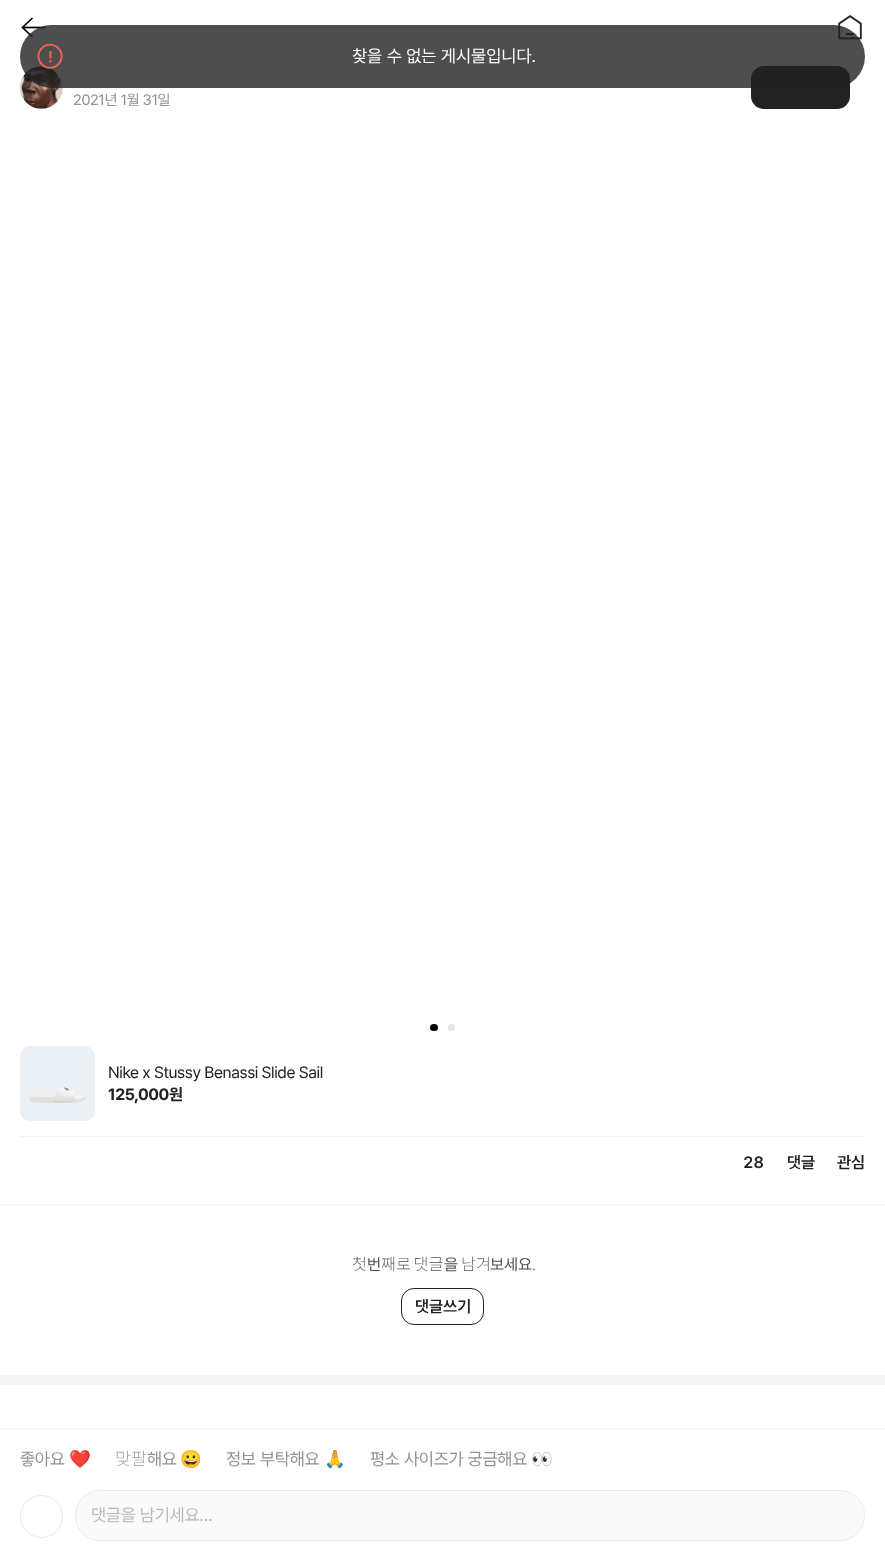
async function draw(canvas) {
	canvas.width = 885;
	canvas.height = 1548;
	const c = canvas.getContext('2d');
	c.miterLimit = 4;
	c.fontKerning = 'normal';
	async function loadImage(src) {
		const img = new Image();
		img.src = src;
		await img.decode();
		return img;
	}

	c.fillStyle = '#fff';
	c.fillRect(0, 0, 885, 1548);
	c.beginPath();
	c.moveTo(32.5, 18);
	c.lineTo(22.5, 27.5);
	c.lineTo(32.5, 37);
	c.strokeStyle = '#000';
	c.lineWidth = 1.7;
	c.stroke();
	c.beginPath();
	c.moveTo(23.5, 27.5);
	c.lineTo(45, 27.5);
	c.lineJoin = 'round';
	c.stroke();
	c.drawImage(await loadImage('img1.png'), 838, 15, 24, 25);
	c.drawImage(await loadImage('img3.png'), 20, 66, 43, 43);
	c.beginPath();
	c.arc(41.5, 87.5, 21, 0, 2 * Math.PI);
	c.strokeStyle = '#2222221a';
	c.lineWidth = 1;
	c.stroke();
	c.fillStyle = '#222';
	c.beginPath();
	c.roundRect(751, 66, 99, 43, 13);
	c.fill();
	c.fillStyle = '#222222cc';
	c.beginPath();
	c.roundRect(20, 25, 845, 63, 31.5);
	c.fill();
	c.drawImage(await loadImage('img2.png'), 37, 43, 26, 26);
	c.font = '17.5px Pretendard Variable';
	c.fillStyle = '#fff';
	c.fillText('찾을 수 없는 게시물입니다.', 352, 62);
	c.letterSpacing = '-0.4px';
	c.font = '15px Pretendard Variable';
	c.fillStyle = '#919191';
	c.fillText('2021년 1월 31일', 73, 105);
	c.fillStyle = '#000';
	c.beginPath();
	c.roundRect(430, 1024, 8, 7, 3.5);
	c.fill();
	c.fillStyle = '#e6e6e6';
	c.beginPath();
	c.arc(451.5, 1027.5, 3.5, 0, 2 * Math.PI);
	c.fill();
	c.fillStyle = '#f4f4f4';
	c.fillRect(20, 1136, 845, 1);
	c.fillStyle = '#ebf0f5';
	c.beginPath();
	c.roundRect(20, 1046, 75, 75, 10);
	c.fill();
	c.drawImage(await loadImage('img4.png'), 29, 1086, 57, 17);
	c.font = '16.25px Pretendard Variable';
	c.fillStyle = '#222';
	c.fillText('Nike x Stussy Benassi Slide Sail', 108, 1078);
	c.font = 'bold 16.25px Pretendard Variable';
	c.fillText('125,000원', 108, 1100);
	c.letterSpacing = '0px';
	c.font = '600 16.25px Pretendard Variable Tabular';
	c.fillText('28', 743, 1168);
	c.font = '600 16.25px Pretendard Variable';
	c.fillText('댓글', 787, 1168);
	c.fillText('관심', 837, 1168);
	c.fillStyle = '#f4f4f4';
	c.fillRect(0, 1204, 885, 1);
	c.font = '200 16.25px Noto Sans KR';
	c.fillStyle = '#4e4e4e';
	c.fillText('첫', 352, 1270);
	c.font = '16.25px Pretendard Variable';
	c.fillText('번', 367, 1270);
	c.wordSpacing = '-1px';
	c.font = '200 16.25px Noto Sans KR';
	c.fillText('째로 댓글', 381, 1270);
	c.wordSpacing = '0px';
	c.font = '16.25px Pretendard Variable';
	c.fillText('을', 444, 1270);
	c.font = '200 16.25px Noto Sans KR';
	c.fillText('남겨', 461, 1270);
	c.font = '16.25px Pretendard Variable';
	c.fillText('보세요', 490, 1270);
	c.font = '200 16.25px Noto Sans KR';
	c.fillText('.', 532, 1270);
	c.beginPath();
	c.roundRect(401.5, 1288.5, 82, 36, 12.5);
	c.strokeStyle = '#222';
	c.lineJoin = 'miter';
	c.stroke();
	c.font = '600 16.25px Pretendard Variable';
	c.fillStyle = '#222';
	c.fillText('댓글쓰기', 415, 1312);
	c.fillStyle = '#f4f4f4';
	c.fillRect(0, 1428, 885, 1);
	c.letterSpacing = '-0.25px';
	c.font = '17.5px Pretendard Variable';
	c.fillStyle = '#919191';
	c.fillText('좋아요', 20, 1465);
	c.font = '17.5px Noto Color Emoji';
	c.fillText('❤️', 69, 1465);
	c.font = '200 17.5px Noto Sans KR';
	c.fillText('맞팔', 115, 1465);
	c.font = '17.5px Pretendard Variable';
	c.fillText('해요', 147, 1465);
	c.font = '17.5px "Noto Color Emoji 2"';
	c.fillText('😀', 180, 1465);
	c.font = '17.5px Pretendard Variable';
	c.fillText('정보 부탁해요', 226, 1465);
	c.font = '17.5px Noto Color Emoji';
	c.fillText('🙏', 324, 1465);
	c.font = '17.5px Pretendard Variable';
	c.fillText('평소 사이즈가 궁금해요', 370, 1465);
	c.font = '17.5px Noto Color Emoji';
	c.fillText('👀', 531, 1465);
	c.beginPath();
	c.arc(41.5, 1516.5, 21, 0, 2 * Math.PI);
	c.strokeStyle = '#e9e9e9';
	c.stroke();
	c.fillStyle = '#fafafa';
	c.beginPath();
	c.roundRect(75.5, 1490.5, 789, 50, 24.5);
	c.fill();
	c.strokeStyle = '#ebebeb';
	c.stroke();
	c.font = '17.5px Pretendard Variable';
	c.fillStyle = '#b9b9b9';
	c.fillText('댓글을 남기세요…', 91, 1521);
	c.fillStyle = '#f4f4f4';
	c.fillRect(0, 1375, 885, 10);
}

draw(document.querySelector('canvas'));
